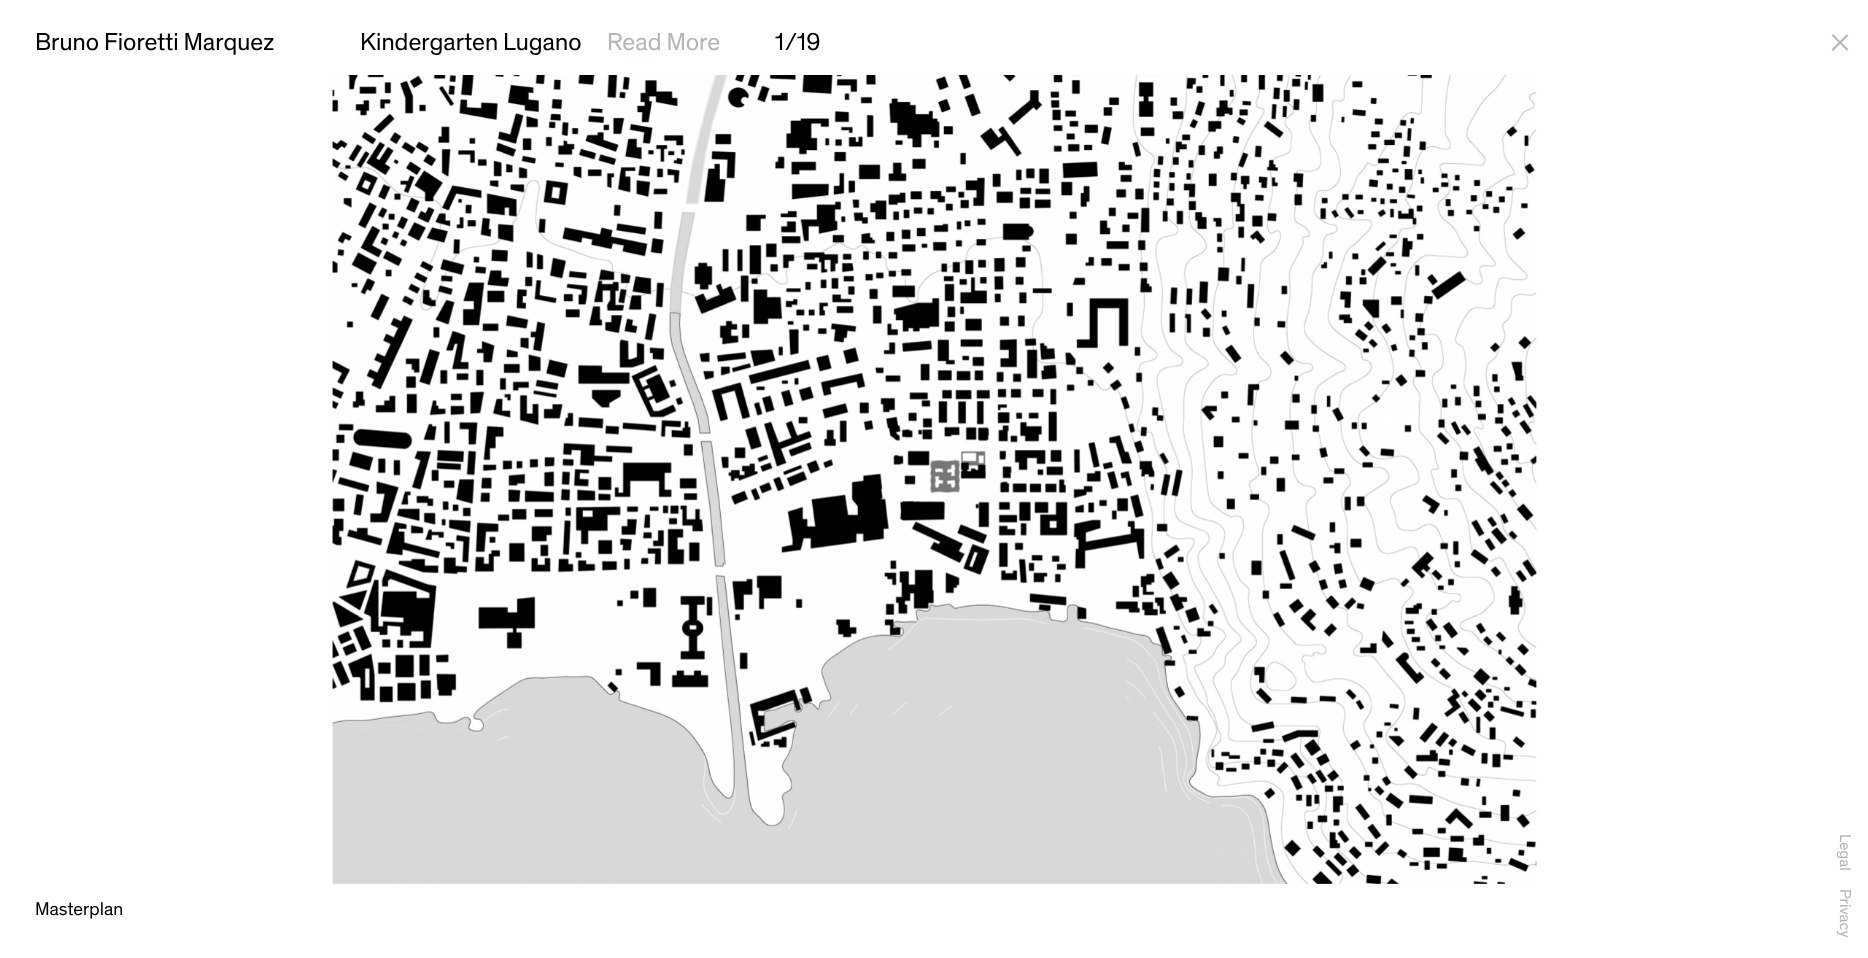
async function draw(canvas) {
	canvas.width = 1868;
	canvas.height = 958;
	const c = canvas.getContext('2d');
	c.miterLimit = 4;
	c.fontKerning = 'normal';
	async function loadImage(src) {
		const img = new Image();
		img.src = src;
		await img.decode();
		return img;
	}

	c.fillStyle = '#fff';
	c.fillRect(0, 0, 1868, 958);
	c.font = '25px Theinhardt';
	c.fillStyle = '#000';
	c.fillText('Kindergarten Lugano', 360, 50);
	c.fillStyle = '#b2b6bb';
	c.fillText('Read More', 607, 50);
	c.fillStyle = '#000';
	c.fillText('1', 775, 50);
	c.fillText('/19', 785, 50);
	c.drawImage(await loadImage('img1.png'), 1831, 34, 18, 17);
	c.drawImage(await loadImage('img2.png'), 332, 75, 1205, 809);
	c.font = '18.75px Theinhardt';
	c.fillText('Masterplan', 35, 915);
	c.font = '16px Theinhardt';
	c.fillStyle = '#b2b6bb';
	c.save();
	c.translate(1840, 834);
	c.rotate(90 * Math.PI / 180);
	c.fillText('Legal', 0, 0);
	c.restore();
	c.save();
	c.translate(1840, 889);
	c.rotate(90 * Math.PI / 180);
	c.fillText('Privacy', 0, 0);
	c.restore();
	c.font = '25px Theinhardt';
	c.fillStyle = '#000';
	c.fillText('Bruno Fioretti Marquez', 35, 50);
}

draw(document.querySelector('canvas'));
